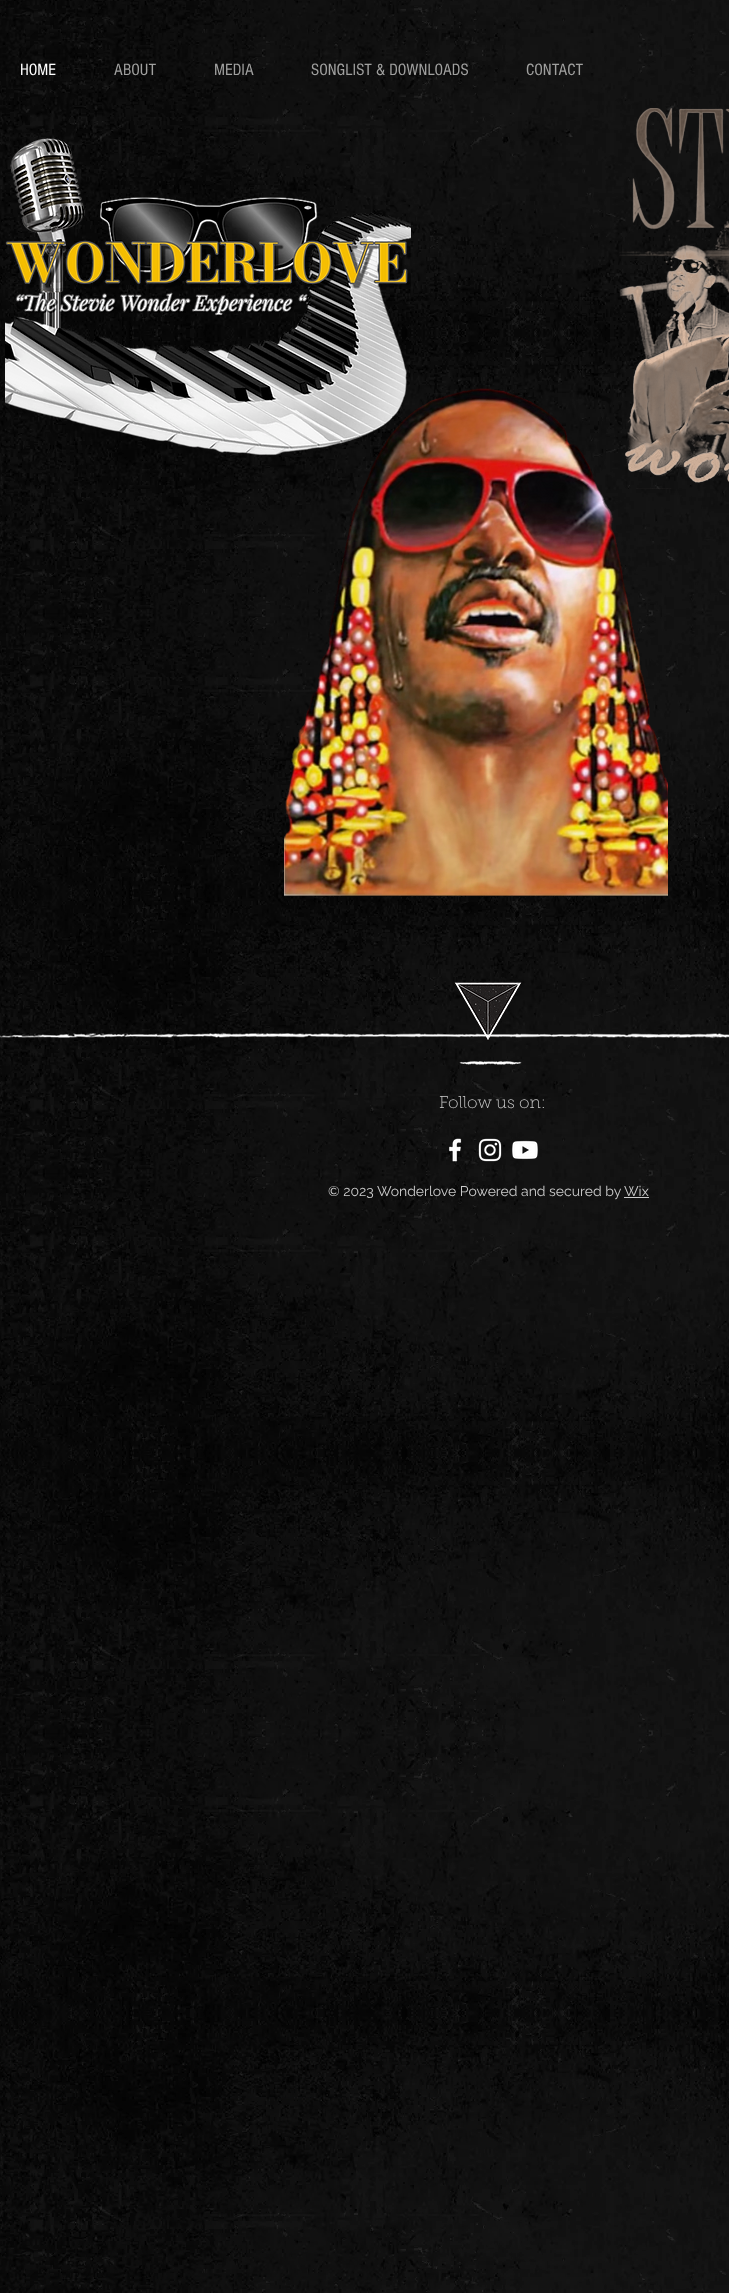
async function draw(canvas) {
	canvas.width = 729;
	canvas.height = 2293;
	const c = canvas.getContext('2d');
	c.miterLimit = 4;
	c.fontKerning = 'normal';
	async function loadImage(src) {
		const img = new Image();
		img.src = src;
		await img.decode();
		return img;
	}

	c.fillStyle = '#fff';
	c.fillRect(0, 0, 729, 2293);
	c.drawImage(await loadImage('img1.png'), 0, 0, 729, 2293);
	c.font = '17px "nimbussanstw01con"';
	c.fillText('HOME', 20, 75);
	c.fillStyle = '#a0a09f';
	for (const [text, x, y] of [
		['ABOUT', 114, 75],
		['MEDIA', 214, 75],
		['SONGLIST & DOWNLOADS', 311, 75],
		['CONTACT', 526, 75],
	]) {
		c.fillText(text, x, y);
	}
	c.drawImage(await loadImage('img4.png'), 284, 388, 384, 508);
	c.drawImage(await loadImage('img2.png'), 5, 138, 406, 318);
	c.drawImage(await loadImage('img3.png'), 619, 108, 110, 381);
	c.drawImage(await loadImage('img5.png'), 454, 982, 68, 59);
	c.drawImage(await loadImage('img6.png'), 0, 1032, 729, 7);
	c.drawImage(await loadImage('img7.png'), 459, 1061, 63, 4);
	c.font = '100 17px "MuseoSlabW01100"';
	c.fillStyle = '#ccc';
	c.fillText('Follow us on:', 439, 1108);
	c.drawImage(await loadImage('img8.png'), 449, 1138, 13, 24);
	c.drawImage(await loadImage('img9.png'), 478, 1138, 24, 24);
	c.drawImage(await loadImage('img10.png'), 512, 1140, 26, 20);
	c.font = '14px Raleway';
	c.fillText('© 2023 Wonderlove Powered and secured by Wix', 328, 1196);
	c.fillRect(624, 1197, 25, 1);
}

draw(document.querySelector('canvas'));
